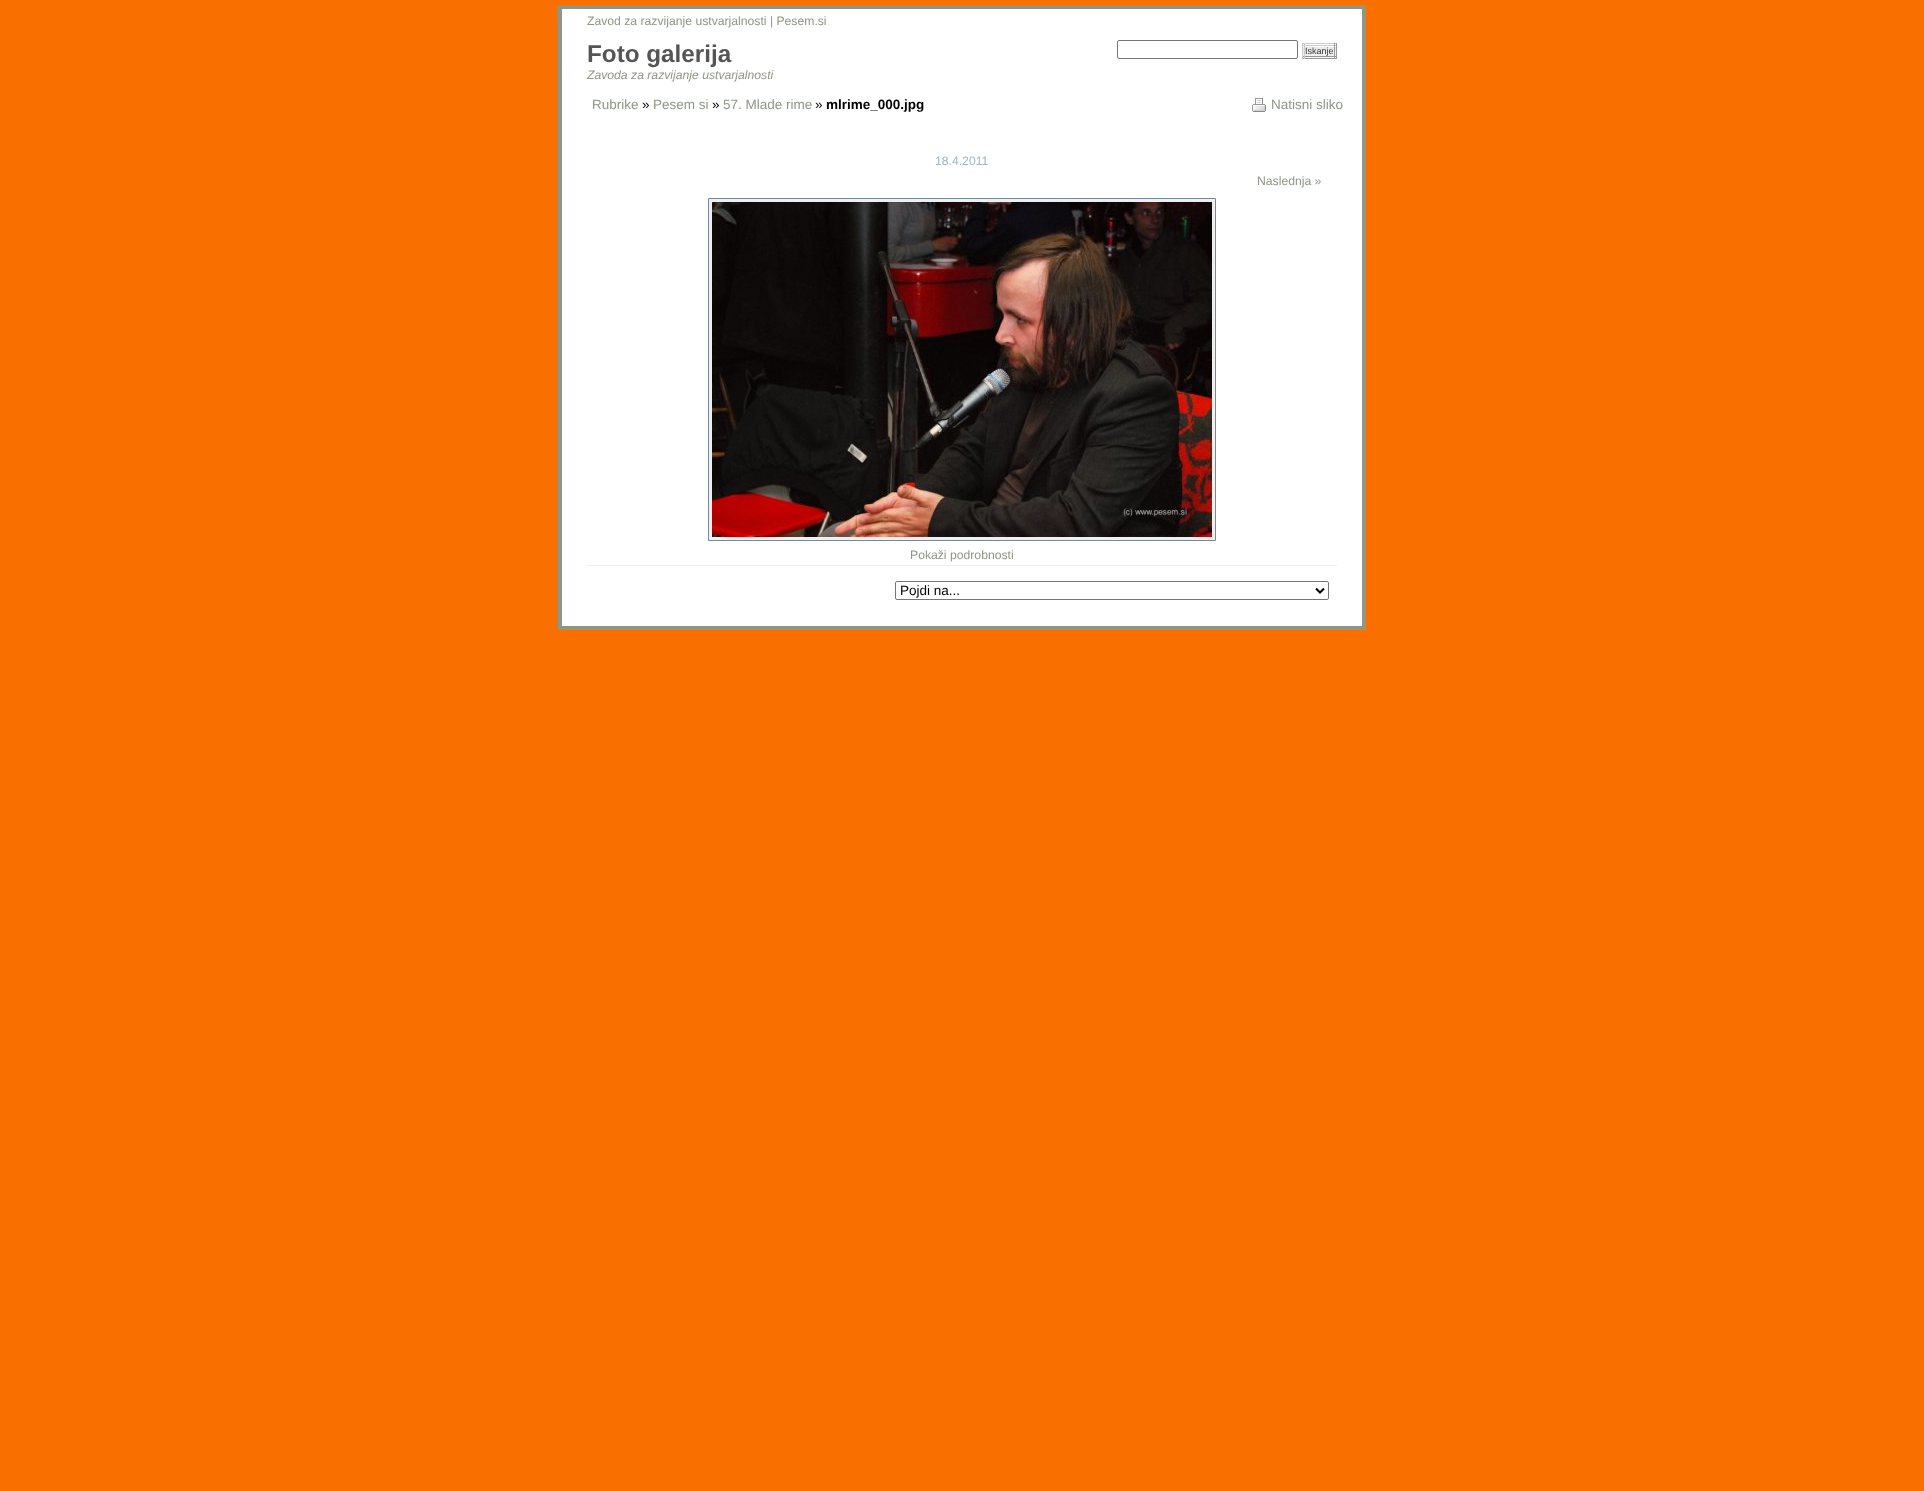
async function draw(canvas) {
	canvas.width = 1924;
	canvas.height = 1491;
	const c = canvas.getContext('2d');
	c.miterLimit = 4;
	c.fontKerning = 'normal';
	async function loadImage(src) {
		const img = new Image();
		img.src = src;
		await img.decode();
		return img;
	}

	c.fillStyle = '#f97000';
	c.fillRect(0, 0, 1924, 1491);
	c.fillStyle = '#fff';
	c.beginPath();
	c.rect(560, 7, 804, 621);
	c.fill();
	c.strokeStyle = '#8e9687';
	c.lineWidth = 4;
	c.stroke();
	c.font = '12.2px Liberation Sans';
	c.fillStyle = '#8e9687';
	c.fillText('Zavod za razvijanje ustvarjalnosti | Pesem.si', 587, 25);
	c.font = 'bold 24.25px Liberation Sans';
	c.fillStyle = '#555';
	c.fillText('Foto galerija', 587, 62);
	c.beginPath();
	c.roundRect(1117.5, 40.5, 180, 18, 1.5);
	c.strokeStyle = '#767676';
	c.lineWidth = 1;
	c.stroke();
	c.drawImage(await loadImage('img1.png'), 1303, 47, 33, 11);
	for (const [x, y, w, h, color] of [
		[1302, 43, 35, 1, '#ccc'],
		[1302, 45, 35, 1, '#ccc'],
		[1334, 43, 1, 16, '#999'],
		[1336, 43, 1, 16, '#999'],
		[1302, 56, 35, 1, '#999'],
		[1302, 58, 35, 1, '#999'],
		[1302, 43, 1, 16, '#ccc'],
		[1304, 43, 1, 16, '#ccc'],
	]) {
		c.fillStyle = color;
		c.fillRect(x, y, w, h);
	}
	c.font = '9px Liberation Sans';
	c.fillStyle = '#333';
	c.fillText('Iskanje', 1305, 54);
	c.font = 'italic 12.2px Liberation Sans';
	c.fillStyle = '#8e9687';
	c.fillText('Zavoda za razvijanje ustvarjalnosti', 587, 79);
	c.font = '13.5px Liberation Sans';
	c.fillText('Rubrike', 592, 109);
	c.fillStyle = '#000';
	c.fillText('»', 642, 109);
	c.fillStyle = '#8e9687';
	c.fillText('Pesem si', 653, 109);
	c.fillStyle = '#000';
	c.fillText('»', 712, 109);
	c.fillStyle = '#8e9687';
	c.fillText('57. Mlade rime', 723, 109);
	c.fillStyle = '#000';
	c.fillText('»', 815, 109);
	c.font = 'bold 13.5px Liberation Sans';
	c.fillText('mlrime_000.jpg', 826, 109);
	c.drawImage(await loadImage('img2.png'), 1252, 98, 14, 14);
	c.font = '13.5px Liberation Sans';
	c.fillStyle = '#8e9687';
	c.fillText('Natisni sliko', 1271, 109);
	c.font = '12.2px Liberation Sans';
	c.fillStyle = '#a0b7c9';
	c.fillText('18.4.2011', 935, 165);
	c.fillStyle = '#8e9687';
	c.fillText('Naslednja »', 1257, 185);
	c.fillStyle = '#efefef';
	c.beginPath();
	c.rect(708.5, 198.5, 507, 342);
	c.fill();
	c.strokeStyle = '#789';
	c.stroke();
	c.drawImage(await loadImage('img3.png'), 712, 202, 500, 335);
	c.fillStyle = '#8e9687';
	c.fillText('Pokaži podrobnosti', 910, 559);
	c.fillStyle = '#efefef';
	c.fillRect(587, 565, 750, 1);
	c.beginPath();
	c.roundRect(895.5, 581.5, 433, 18, 1.5);
	c.strokeStyle = '#767676';
	c.stroke();
	c.beginPath();
	c.moveTo(1316, 588.5);
	c.lineTo(1320, 592.5);
	c.lineTo(1324, 588.5);
	c.strokeStyle = '#000';
	c.lineWidth = 2;
	c.stroke();
	c.font = '13.5px Liberation Sans';
	c.fillStyle = '#000';
	c.fillText('Pojdi na...', 900, 595);
}

draw(document.querySelector('canvas'));
